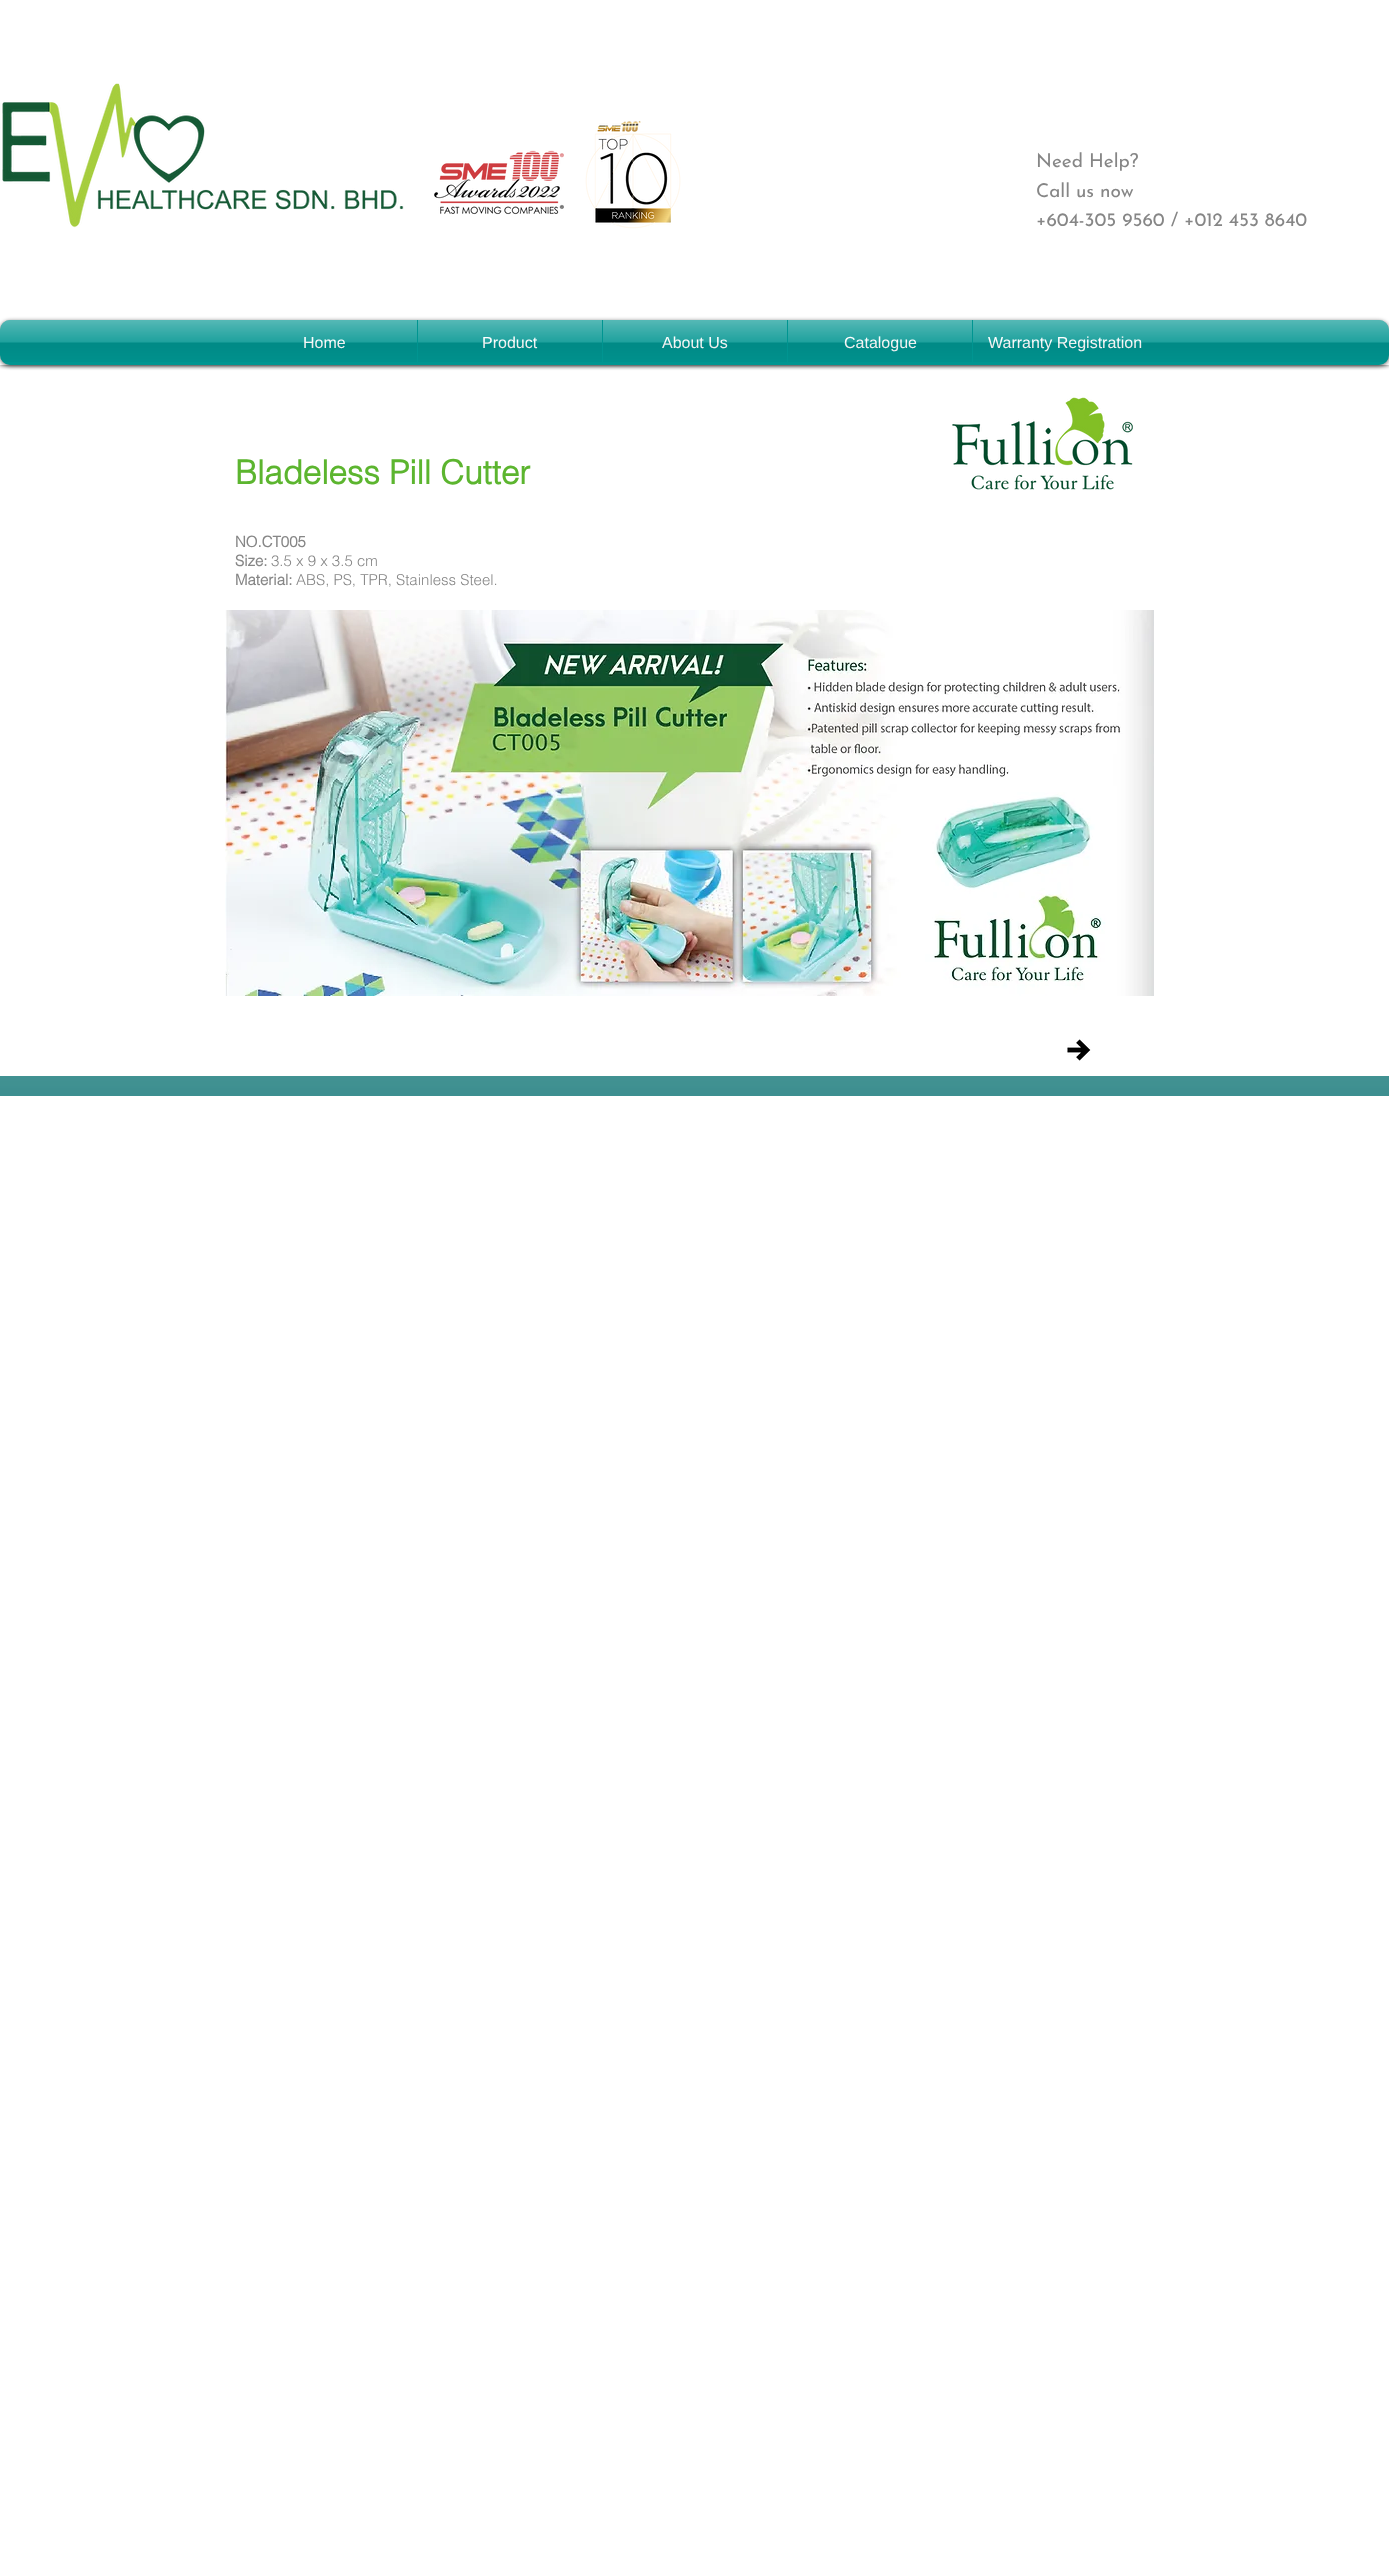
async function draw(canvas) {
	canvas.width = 1389;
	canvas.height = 2559;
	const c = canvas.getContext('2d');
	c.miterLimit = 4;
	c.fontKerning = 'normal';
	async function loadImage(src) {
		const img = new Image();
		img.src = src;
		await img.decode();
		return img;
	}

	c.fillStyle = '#fff';
	c.fillRect(0, 0, 1389, 2559);
	c.save();
	c.beginPath();
	c.rect(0, 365, 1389, 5);
	c.clip();
	c.fillStyle = '#000000b3';
	c.filter = 'blur(2.5px)';
	c.beginPath();
	c.rect(0, 0, 1389, 365);
	c.fill();
	c.filter = 'none';
	c.restore();
	c.drawImage(await loadImage('img1.png'), 0, 83, 404, 145);
	c.drawImage(await loadImage('img2.png'), 434, 150, 130, 65);
	c.drawImage(await loadImage('img3.png'), 585, 121, 96, 108);
	c.font = '100 19px Josefin Sans';
	c.fillStyle = '#868686';
	for (const [text, x, y] of [
		['Need Help?', 1036, 167],
		['Call us now', 1036, 197],
		['+604-305 9560 / +012 453 8640', 1036, 226],
	]) {
		c.fillText(text, x, y);
	}
	c.fillStyle = '#00000099';
	c.filter = 'blur(2px)';
	c.beginPath();
	c.roundRect(0, 321, 1389, 45, 10);
	c.fill();
	c.filter = 'none';
	c.fillStyle = '#009591';
	c.beginPath();
	c.roundRect(0, 320, 1389, 45, 10);
	c.fill();
	c.drawImage(await loadImage('img4.png'), 0, 320, 1389, 42);
	c.fillRect(232, 320, 925, 42);
	c.font = '16px Liberation Sans';
	c.fillStyle = '#fff';
	c.fillText('Home', 303, 348);
	c.drawImage(await loadImage('img5.png'), 232, 320, 185, 42);
	c.fillText('Product', 482, 348);
	c.drawImage(await loadImage('img6.png'), 418, 320, 184, 42);
	c.fillText('About Us', 662, 348);
	c.drawImage(await loadImage('img7.png'), 603, 320, 184, 42);
	c.fillText('Catalogue', 844, 348);
	c.drawImage(await loadImage('img8.png'), 788, 320, 184, 42);
	c.fillText('Warranty Registration', 988, 348);
	c.drawImage(await loadImage('img9.png'), 973, 320, 184, 42);
	c.drawImage(await loadImage('img10.png'), 952, 397, 181, 93);
	c.font = 'bold 33px helvetica';
	c.fillStyle = '#5cb52f';
	c.fillText('Bladeless Pill Cutter', 235, 484);
	c.font = 'bold 15px helvetica';
	c.fillStyle = '#868686';
	c.fillText('NO.CT005', 235, 547);
	c.fillText('Size:', 235, 566);
	c.font = '300 15px helvetica';
	c.fillText('3.5 x 9 x 3.5 cm', 271, 566);
	c.font = 'bold 15px helvetica';
	c.fillText('Material:', 235, 585);
	c.font = '300 15px helvetica';
	c.fillText('ABS, PS, TPR, Stainless Steel.', 296, 585);
	c.drawImage(await loadImage('img11.png'), 225, 610, 929, 386);
	c.drawImage(await loadImage('img12.png'), 1067, 1039, 24, 22);
	c.fillStyle = '#006c6d';
	c.fillRect(0, 1076, 1389, 20);
	c.drawImage(await loadImage('img13.png'), 0, 1076, 1389, 20);
}

draw(document.querySelector('canvas'));
